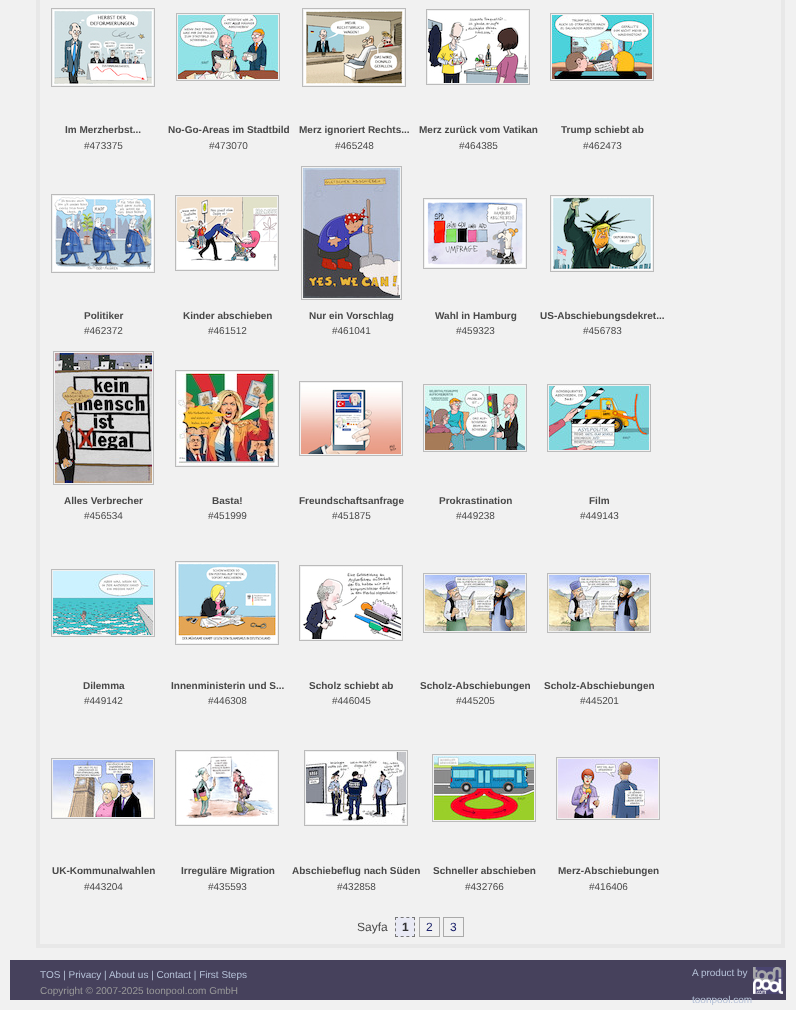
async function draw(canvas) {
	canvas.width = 796;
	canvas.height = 1010;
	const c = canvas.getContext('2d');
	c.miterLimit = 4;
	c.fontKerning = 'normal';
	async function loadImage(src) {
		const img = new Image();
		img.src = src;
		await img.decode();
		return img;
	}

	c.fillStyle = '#f1f1f1';
	c.fillRect(0, 0, 796, 1010);
	c.strokeStyle = '#e8e8e8';
	c.lineWidth = 4;
	c.strokeRect(38, -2, 745, 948);
	c.strokeStyle = '#bbb';
	c.lineWidth = 1;
	c.strokeRect(51.5, 8.5, 103, 78);
	c.drawImage(await loadImage('img1.png'), 53, 10, 100, 75);
	c.font = 'bold 10px Liberation Sans';
	c.fillStyle = '#494949';
	c.fillText('Im Merzherbst...', 65, 133);
	c.font = '10px Liberation Sans';
	c.fillText('#473375', 84, 149);
	c.strokeRect(176.5, 13.5, 103, 67);
	c.drawImage(await loadImage('img2.png'), 178, 15, 100, 64);
	c.font = 'bold 10px Liberation Sans';
	c.fillText('No-Go-Areas im Stadtbild', 168, 133);
	c.font = '10px Liberation Sans';
	c.fillText('#473070', 209, 149);
	c.strokeRect(302.5, 8.5, 103, 78);
	c.drawImage(await loadImage('img3.png'), 304, 10, 100, 75);
	c.font = 'bold 10px Liberation Sans';
	c.fillText('Merz ignoriert Rechts...', 299, 133);
	c.font = '10px Liberation Sans';
	c.fillText('#465248', 335, 149);
	c.strokeRect(426.5, 9.5, 103, 75);
	c.drawImage(await loadImage('img4.png'), 428, 11, 100, 72);
	c.font = 'bold 10px Liberation Sans';
	c.fillText('Merz zurück vom Vatikan', 419, 133);
	c.font = '10px Liberation Sans';
	c.fillText('#464385', 459, 149);
	c.strokeRect(550.5, 13.5, 103, 67);
	c.drawImage(await loadImage('img5.png'), 552, 15, 100, 64);
	c.font = 'bold 10px Liberation Sans';
	c.fillText('Trump schiebt ab', 561, 133);
	c.font = '10px Liberation Sans';
	c.fillText('#462473', 583, 149);
	c.strokeRect(51.5, 194.5, 103, 78);
	c.drawImage(await loadImage('img6.png'), 53, 196, 100, 75);
	c.font = 'bold 10px Liberation Sans';
	c.fillText('Politiker', 84, 319);
	c.font = '10px Liberation Sans';
	c.fillText('#462372', 84, 334);
	c.strokeRect(175.5, 195.5, 103, 75);
	c.drawImage(await loadImage('img7.png'), 177, 197, 100, 72);
	c.font = 'bold 10px Liberation Sans';
	c.fillText('Kinder abschieben', 183, 319);
	c.font = '10px Liberation Sans';
	c.fillText('#461512', 208, 334);
	c.strokeRect(301.5, 166.5, 100, 133);
	c.drawImage(await loadImage('img8.png'), 303, 168, 97, 130);
	c.font = 'bold 10px Liberation Sans';
	c.fillText('Nur ein Vorschlag', 309, 319);
	c.font = '10px Liberation Sans';
	c.fillText('#461041', 332, 334);
	c.strokeRect(423.5, 198.5, 103, 70);
	c.drawImage(await loadImage('img9.png'), 425, 200, 100, 67);
	c.font = 'bold 10px Liberation Sans';
	c.fillText('Wahl in Hamburg', 435, 319);
	c.font = '10px Liberation Sans';
	c.fillText('#459323', 456, 334);
	c.strokeRect(550.5, 195.5, 103, 76);
	c.drawImage(await loadImage('img10.png'), 552, 197, 100, 73);
	c.font = 'bold 10px Liberation Sans';
	c.fillText('US-Abschiebungsdekret...', 540, 319);
	c.font = '10px Liberation Sans';
	c.fillText('#456783', 583, 334);
	c.strokeRect(53.5, 351.5, 100, 133);
	c.drawImage(await loadImage('img11.png'), 55, 353, 97, 130);
	c.font = 'bold 10px Liberation Sans';
	c.fillText('Alles Verbrecher', 64, 504);
	c.font = '10px Liberation Sans';
	c.fillText('#456534', 84, 519);
	c.strokeRect(175.5, 370.5, 103, 96);
	c.drawImage(await loadImage('img12.png'), 177, 372, 100, 93);
	c.font = 'bold 10px Liberation Sans';
	c.fillText('Basta!', 212, 504);
	c.font = '10px Liberation Sans';
	c.fillText('#451999', 208, 519);
	c.strokeRect(299.5, 381.5, 103, 74);
	c.drawImage(await loadImage('img13.png'), 301, 383, 100, 71);
	c.font = 'bold 10px Liberation Sans';
	c.fillText('Freundschaftsanfrage', 299, 504);
	c.font = '10px Liberation Sans';
	c.fillText('#451875', 332, 519);
	c.strokeRect(423.5, 384.5, 103, 67);
	c.drawImage(await loadImage('img14.png'), 425, 386, 100, 64);
	c.font = 'bold 10px Liberation Sans';
	c.fillText('Prokrastination', 439, 504);
	c.font = '10px Liberation Sans';
	c.fillText('#449238', 456, 519);
	c.strokeRect(547.5, 384.5, 103, 67);
	c.drawImage(await loadImage('img15.png'), 549, 386, 100, 64);
	c.font = 'bold 10px Liberation Sans';
	c.fillText('Film', 589, 504);
	c.font = '10px Liberation Sans';
	c.fillText('#449143', 580, 519);
	c.strokeRect(51.5, 569.5, 103, 67);
	c.drawImage(await loadImage('img16.png'), 53, 571, 100, 64);
	c.font = 'bold 10px Liberation Sans';
	c.fillText('Dilemma', 83, 689);
	c.font = '10px Liberation Sans';
	c.fillText('#449142', 84, 704);
	c.strokeRect(175.5, 561.5, 103, 83);
	c.drawImage(await loadImage('img17.png'), 177, 563, 100, 80);
	c.font = 'bold 10px Liberation Sans';
	c.fillText('Innenministerin und S...', 171, 689);
	c.font = '10px Liberation Sans';
	c.fillText('#446308', 208, 704);
	c.strokeRect(299.5, 565.5, 103, 75);
	c.drawImage(await loadImage('img18.png'), 301, 567, 100, 72);
	c.font = 'bold 10px Liberation Sans';
	c.fillText('Scholz schiebt ab', 309, 689);
	c.font = '10px Liberation Sans';
	c.fillText('#446045', 332, 704);
	c.strokeRect(423.5, 573.5, 103, 59);
	c.drawImage(await loadImage('img19.png'), 425, 575, 100, 56);
	c.font = 'bold 10px Liberation Sans';
	c.fillText('Scholz-Abschiebungen', 420, 689);
	c.font = '10px Liberation Sans';
	c.fillText('#445205', 456, 704);
	c.strokeRect(547.5, 573.5, 103, 59);
	c.drawImage(await loadImage('img19.png'), 549, 575, 100, 56);
	c.font = 'bold 10px Liberation Sans';
	c.fillText('Scholz-Abschiebungen', 544, 689);
	c.font = '10px Liberation Sans';
	c.fillText('#445201', 580, 704);
	c.strokeRect(51.5, 758.5, 103, 60);
	c.drawImage(await loadImage('img20.png'), 53, 760, 100, 57);
	c.font = 'bold 10px Liberation Sans';
	c.fillText('UK-Kommunalwahlen', 52, 874);
	c.font = '10px Liberation Sans';
	c.fillText('#443204', 84, 890);
	c.strokeRect(175.5, 750.5, 103, 75);
	c.drawImage(await loadImage('img21.png'), 177, 752, 100, 72);
	c.font = 'bold 10px Liberation Sans';
	c.fillText('Irreguläre Migration', 181, 874);
	c.font = '10px Liberation Sans';
	c.fillText('#435593', 208, 890);
	c.strokeRect(304.5, 750.5, 103, 75);
	c.drawImage(await loadImage('img22.png'), 306, 752, 100, 72);
	c.font = 'bold 10px Liberation Sans';
	c.fillText('Abschiebeflug nach Süden', 292, 874);
	c.font = '10px Liberation Sans';
	c.fillText('#432858', 337, 890);
	c.strokeRect(432.5, 754.5, 103, 67);
	c.drawImage(await loadImage('img23.png'), 434, 756, 100, 64);
	c.font = 'bold 10px Liberation Sans';
	c.fillText('Schneller abschieben', 433, 874);
	c.font = '10px Liberation Sans';
	c.fillText('#432766', 465, 890);
	c.strokeRect(556.5, 757.5, 103, 62);
	c.drawImage(await loadImage('img24.png'), 558, 759, 100, 59);
	c.font = 'bold 10px Liberation Sans';
	c.fillText('Merz-Abschiebungen', 558, 874);
	c.font = '10px Liberation Sans';
	c.fillText('#416406', 589, 890);
	c.font = '12px Liberation Sans';
	c.fillText('Sayfa', 357, 931);
	c.fillStyle = '#e9eaf5';
	c.fillRect(395, 917, 20, 20);
	c.beginPath();
	c.moveTo(395, 917.5);
	c.lineTo(415, 917.5);
	c.moveTo(414.5, 917);
	c.lineTo(414.5, 937);
	c.moveTo(395, 936.5);
	c.lineTo(415, 936.5);
	c.moveTo(395.5, 917);
	c.lineTo(395.5, 937);
	c.strokeStyle = '#777';
	c.setLineDash([3, 2.67]);
	c.stroke();
	c.font = 'bold 12px Liberation Sans';
	c.fillStyle = '#333';
	c.fillText('1', 402, 931);
	c.strokeStyle = '#aaa';
	c.setLineDash([]);
	c.strokeRect(419.5, 917.5, 20, 19);
	c.font = '12px Liberation Sans';
	c.fillStyle = '#1d246c';
	c.fillText('2', 426, 931);
	c.strokeRect(443.5, 917.5, 20, 19);
	c.fillText('3', 450, 931);
	c.fillStyle = '#46415c';
	c.fillRect(10, 960, 776, 40);
	c.font = '10px Liberation Sans';
	c.fillStyle = '#b6c2d8';
	c.fillText('TOS | Privacy | About us | Contact | First Steps', 40, 978);
	c.fillStyle = '#999';
	c.fillText('Copyright © 2007-2025 toonpool.com GmbH', 40, 994);
	c.fillStyle = '#b6c2d8';
	c.fillText('A product by', 692, 976);
	c.drawImage(await loadImage('img25.png'), 753, 967, 30, 27);
	c.fillText('toonpool.com', 692, 1003);
}

draw(document.querySelector('canvas'));
